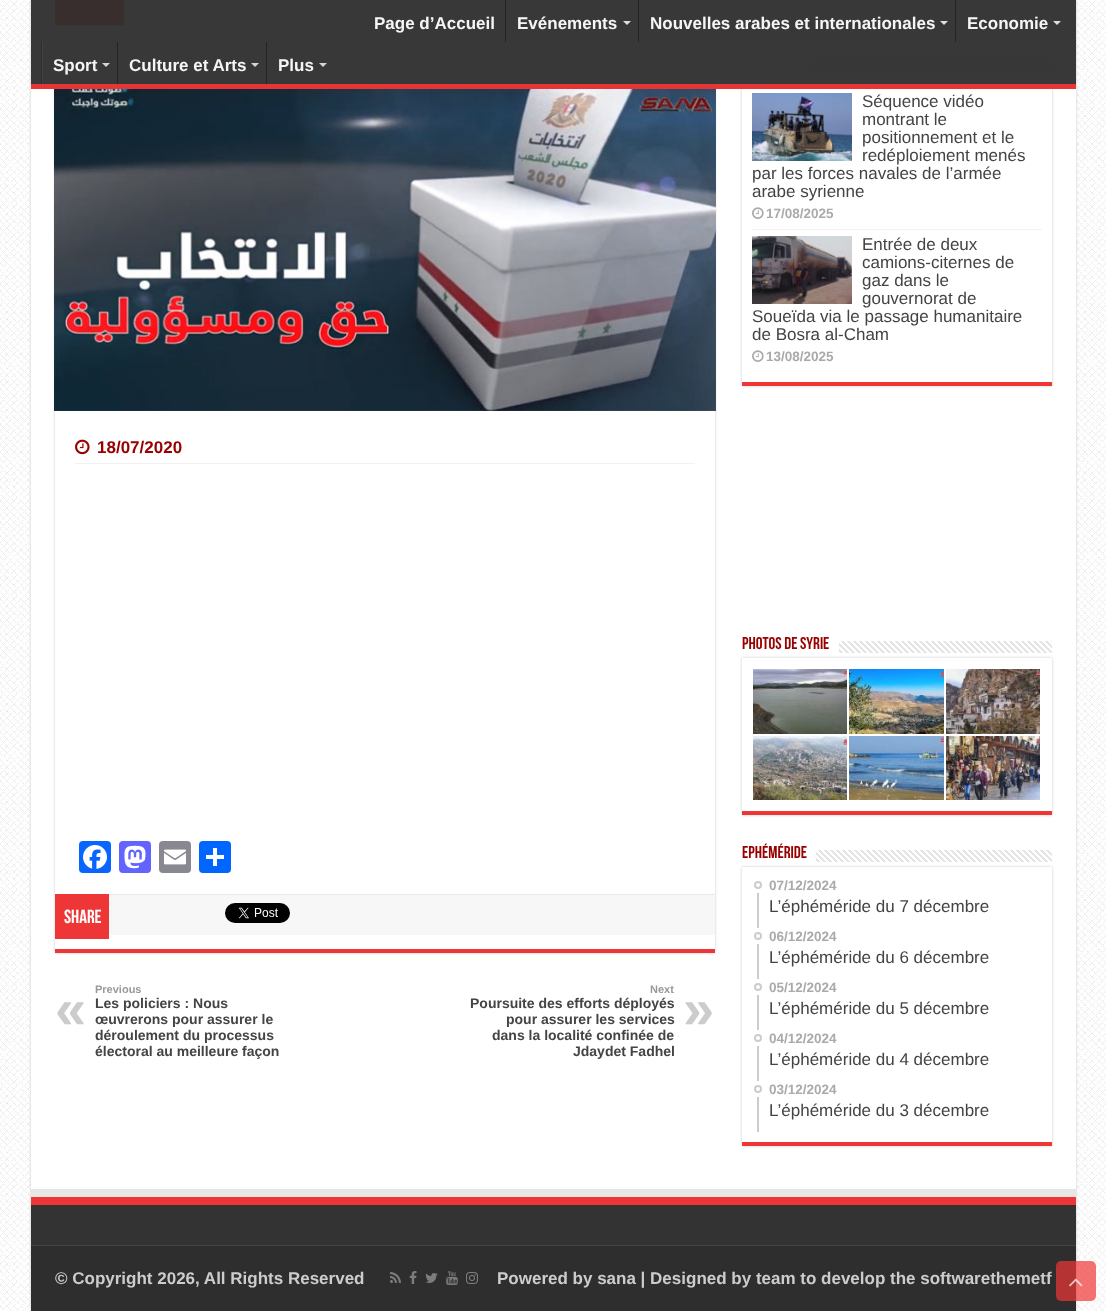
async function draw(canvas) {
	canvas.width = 1106;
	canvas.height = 1311;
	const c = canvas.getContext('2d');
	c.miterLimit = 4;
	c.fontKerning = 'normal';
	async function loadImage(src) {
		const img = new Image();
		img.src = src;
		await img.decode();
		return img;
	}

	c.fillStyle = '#fff';
	c.fillRect(0, 0, 1106, 1311);
	c.drawImage(await loadImage('img1.png'), 0, 0, 1106, 1311);
	c.fillStyle = '#cacaca';
	c.filter = 'blur(1.5px)';
	c.beginPath();
	c.rect(31, -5, 1045, 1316);
	c.fill();
	c.filter = 'none';
	c.fillStyle = '#fff';
	c.fillRect(31, 0, 1045, 1189);
	c.save();
	c.beginPath();
	c.moveTo(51, 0);
	c.lineTo(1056, 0);
	c.lineTo(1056, 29);
	c.lineTo(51, 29);
	c.closePath();
	c.moveTo(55, -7);
	c.lineTo(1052, -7);
	c.lineTo(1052, 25);
	c.lineTo(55, 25);
	c.closePath();
	c.clip('evenodd');
	c.fillStyle = '#cacaca';
	c.filter = 'blur(1px)';
	c.beginPath();
	c.rect(55, -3, 997, 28);
	c.fill();
	c.filter = 'none';
	c.restore();
	c.fillStyle = '#f43d2a';
	c.fillRect(55, 0, 69, 25);
	c.save();
	c.beginPath();
	c.moveTo(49, 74);
	c.lineTo(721, 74);
	c.lineTo(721, 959);
	c.lineTo(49, 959);
	c.closePath();
	c.moveTo(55, 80);
	c.lineTo(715, 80);
	c.lineTo(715, 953);
	c.lineTo(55, 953);
	c.closePath();
	c.clip('evenodd');
	c.fillStyle = '#cacaca';
	c.filter = 'blur(1.5px)';
	c.beginPath();
	c.rect(55, 80, 660, 873);
	c.fill();
	c.filter = 'none';
	c.restore();
	c.drawImage(await loadImage('img2.png'), 54, 80, 662, 331);
	c.save();
	c.beginPath();
	c.moveTo(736, 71);
	c.lineTo(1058, 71);
	c.lineTo(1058, 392);
	c.lineTo(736, 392);
	c.closePath();
	c.moveTo(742, 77);
	c.lineTo(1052, 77);
	c.lineTo(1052, 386);
	c.lineTo(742, 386);
	c.closePath();
	c.clip('evenodd');
	c.fillStyle = '#cacaca';
	c.filter = 'blur(1.5px)';
	c.beginPath();
	c.rect(742, 77, 310, 309);
	c.fill();
	c.filter = 'none';
	c.restore();
	c.drawImage(await loadImage('img8.png'), 812, 60, 240, 12);
	c.fillStyle = '#2d2d2df2';
	c.fillRect(31, 0, 1045, 89);
	c.save();
	c.beginPath();
	c.rect(31, 0, 1045, 84);
	c.clip();
	c.fillStyle = '#393939f2';
	c.beginPath();
	c.moveTo(-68, -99);
	c.lineTo(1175, -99);
	c.lineTo(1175, 183);
	c.lineTo(-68, 183);
	c.closePath();
	c.moveTo(30, -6);
	c.lineTo(1075, -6);
	c.bezierCurveTo(1076, -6, 1076, -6, 1076, -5);
	c.lineTo(1076, 79);
	c.bezierCurveTo(1076, 80, 1076, 80, 1075, 80);
	c.lineTo(30, 80);
	c.bezierCurveTo(29, 80, 29, 80, 29, 79);
	c.lineTo(29, -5);
	c.bezierCurveTo(29, -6, 29, -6, 30, -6);
	c.closePath();
	c.fill('evenodd');
	c.restore();
	c.fillStyle = '#ef3636f2';
	c.fillRect(31, 84, 1045, 5);
	c.font = 'bold 17px Liberation Sans';
	c.fillStyle = '#f5f5f5';
	c.fillText('Page d’Accueil', 374, 29);
	c.fillStyle = '#232323';
	c.fillRect(505, 0, 1, 42);
	c.fillStyle = '#f5f5f5';
	c.fillText('Evénements', 517, 29);
	c.fillStyle = '#dfdfdf';
	c.beginPath();
	c.moveTo(623, 21);
	c.lineTo(631, 21);
	c.lineTo(627, 25);
	c.closePath();
	c.fill();
	c.fillStyle = '#232323';
	c.fillRect(638, 0, 1, 42);
	c.fillStyle = '#f5f5f5';
	c.fillText('Nouvelles arabes et internationales', 650, 29);
	c.fillStyle = '#dfdfdf';
	c.beginPath();
	c.moveTo(940, 21);
	c.lineTo(948, 21);
	c.lineTo(944, 25);
	c.closePath();
	c.fill();
	c.fillStyle = '#232323';
	c.fillRect(955, 0, 1, 42);
	c.fillStyle = '#f5f5f5';
	c.fillText('Economie', 967, 29);
	c.fillStyle = '#dfdfdf';
	c.beginPath();
	c.moveTo(1053, 21);
	c.lineTo(1061, 21);
	c.lineTo(1057, 25);
	c.closePath();
	c.fill();
	c.fillStyle = '#2d2d2d';
	c.fillRect(41, 42, 1, 42);
	c.fillStyle = '#424242';
	c.fillRect(42, 42, 1, 42);
	c.fillStyle = '#f5f5f5';
	c.fillText('Sport', 53, 71);
	c.fillStyle = '#ddddddf2';
	c.beginPath();
	c.moveTo(102, 63);
	c.lineTo(110, 63);
	c.lineTo(106, 67);
	c.closePath();
	c.fill();
	c.fillStyle = '#222222f2';
	c.fillRect(117, 42, 1, 42);
	c.fillStyle = '#f5f5f5';
	c.fillText('Culture et Arts', 129, 71);
	c.fillStyle = '#ddddddf2';
	c.beginPath();
	c.moveTo(251, 63);
	c.lineTo(259, 63);
	c.lineTo(255, 67);
	c.closePath();
	c.fill();
	c.fillStyle = '#222222f2';
	c.fillRect(266, 42, 1, 42);
	c.fillStyle = '#f5f5f5';
	c.fillText('Plus', 278, 71);
	c.fillStyle = '#ddddddf2';
	c.beginPath();
	c.moveTo(319, 63);
	c.lineTo(327, 63);
	c.lineTo(323, 67);
	c.closePath();
	c.fill();
	c.fillStyle = '#ef3636';
	c.fillRect(55, 949, 660, 4);
	c.fillStyle = '#f2f2f2';
	c.fillRect(75, 463, 620, 1);
	c.drawImage(await loadImage('img3.png'), 75, 439, 15, 16);
	c.fillStyle = '#900';
	c.fillText('18/07/2020', 97, 453);
	c.fillStyle = '#0866ff';
	c.beginPath();
	c.roundRect(79, 841, 32, 32, 4);
	c.fill();
	c.drawImage(await loadImage('img4.png'), 83, 845, 24, 24);
	c.fillStyle = '#6364ff';
	c.beginPath();
	c.roundRect(119, 841, 32, 32, 4);
	c.fill();
	c.drawImage(await loadImage('img5.png'), 124, 845, 22, 24);
	c.fillStyle = '#888990';
	c.beginPath();
	c.roundRect(159, 841, 32, 32, 4);
	c.fill();
	c.drawImage(await loadImage('img6.png'), 164, 849, 22, 16);
	c.fillStyle = '#0166ff';
	c.beginPath();
	c.roundRect(199, 841, 32, 32, 4);
	c.fill();
	for (const [x, y, w, h, color] of [
		[213, 848, 4, 18, '#fff'],
		[206, 855, 18, 4, '#fff'],
		[109, 895, 606, 40, '#f7f7f7'],
		[109, 894, 606, 1, '#eaeaea'],
		[55, 894, 54, 45, '#ef3636'],
	]) {
		c.fillStyle = color;
		c.fillRect(x, y, w, h);
	}
	c.font = 'bold 19px Bebas Neue';
	c.fillStyle = '#fff';
	c.fillText('Share', 64, 923);
	c.drawImage(await loadImage('img7.png'), 225, 903, 65, 20);
	c.font = 'bold 11px Liberation Sans';
	c.fillStyle = '#999';
	c.fillText('Previous', 95, 993);
	c.font = 'bold 56px Liberation Sans';
	c.fillStyle = '#ccc';
	c.fillText('«', 55, 1028);
	c.font = 'bold 14px Liberation Sans';
	c.fillStyle = '#444';
	for (const [text, x, y] of [
		['Les policiers : Nous', 95, 1008],
		['œuvrerons pour assurer le', 95, 1024],
		['déroulement du processus', 95, 1040],
		['électoral au meilleure façon', 95, 1056],
	]) {
		c.fillText(text, x, y);
	}
	c.font = 'bold 11px Liberation Sans';
	c.fillStyle = '#999';
	c.fillText('Next', 650, 993);
	c.font = 'bold 14px Liberation Sans';
	c.fillStyle = '#444';
	c.fillText('Poursuite des efforts déployés', 470, 1008);
	c.font = 'bold 56px Liberation Sans';
	c.fillStyle = '#ccc';
	c.fillText('»', 683, 1028);
	c.font = 'bold 14px Liberation Sans';
	c.fillStyle = '#444';
	for (const [text, x, y] of [
		['pour assurer les services', 506, 1024],
		['dans la localité confinée de', 492, 1040],
		['Jdaydet Fadhel', 573, 1056],
	]) {
		c.fillText(text, x, y);
	}
	c.fillStyle = '#ef3636';
	c.fillRect(742, 382, 310, 4);
	c.fillStyle = '#f2f2f2';
	c.fillRect(752, 229, 290, 1);
	c.drawImage(await loadImage('img9.png'), 752, 93, 100, 68);
	c.font = '17px Liberation Sans';
	c.fillStyle = '#444';
	for (const [text, x, y] of [
		['Séquence vidéo', 862, 107],
		['montrant le', 862, 125],
		['positionnement et le', 862, 143],
		['redéploiement menés', 862, 161],
		['par les forces navales de l’armée', 752, 179],
		['arabe syrienne', 752, 197],
	]) {
		c.fillText(text, x, y);
	}
	c.drawImage(await loadImage('img10.png'), 752, 207, 12, 12);
	c.font = 'bold 13.5px Liberation Sans';
	c.fillStyle = '#aaa';
	c.fillText('17/08/2025', 766, 218);
	c.drawImage(await loadImage('img11.png'), 752, 236, 100, 68);
	c.font = '17px Liberation Sans';
	c.fillStyle = '#444';
	for (const [text, x, y] of [
		['Entrée de deux', 862, 250],
		['camions-citernes de', 862, 268],
		['gaz dans le', 862, 286],
		['gouvernorat de', 862, 304],
		['Soueïda via le passage humanitaire', 752, 322],
		['de Bosra al-Cham', 752, 340],
	]) {
		c.fillText(text, x, y);
	}
	c.drawImage(await loadImage('img10.png'), 752, 350, 12, 12);
	c.font = 'bold 13.5px Liberation Sans';
	c.fillStyle = '#aaa';
	c.fillText('13/08/2025', 766, 361);
	c.font = 'bold 17px Bebas Neue';
	c.fillStyle = '#900';
	c.fillText('Photos de Syrie', 742, 649);
	c.save();
	c.beginPath();
	c.moveTo(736, 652);
	c.lineTo(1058, 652);
	c.lineTo(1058, 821);
	c.lineTo(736, 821);
	c.closePath();
	c.moveTo(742, 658);
	c.lineTo(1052, 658);
	c.lineTo(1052, 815);
	c.lineTo(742, 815);
	c.closePath();
	c.clip('evenodd');
	c.fillStyle = '#cacaca';
	c.filter = 'blur(1.5px)';
	c.beginPath();
	c.rect(742, 658, 310, 157);
	c.fill();
	c.filter = 'none';
	c.restore();
	c.drawImage(await loadImage('img12.png'), 839, 641, 213, 12);
	c.fillStyle = '#ef3636';
	c.fillRect(742, 811, 310, 4);
	c.drawImage(await loadImage('img13.png'), 753, 669, 94, 65);
	c.drawImage(await loadImage('img14.png'), 849, 669, 95, 65);
	c.drawImage(await loadImage('img15.png'), 946, 669, 94, 65);
	c.drawImage(await loadImage('img16.png'), 753, 736, 94, 64);
	c.drawImage(await loadImage('img17.png'), 849, 736, 95, 64);
	c.drawImage(await loadImage('img18.png'), 946, 736, 94, 64);
	c.fillStyle = '#900';
	c.fillText('Ephéméride', 742, 858);
	c.save();
	c.beginPath();
	c.moveTo(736, 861);
	c.lineTo(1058, 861);
	c.lineTo(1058, 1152);
	c.lineTo(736, 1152);
	c.closePath();
	c.moveTo(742, 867);
	c.lineTo(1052, 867);
	c.lineTo(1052, 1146);
	c.lineTo(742, 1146);
	c.closePath();
	c.clip('evenodd');
	c.fillStyle = '#cacaca';
	c.filter = 'blur(1.5px)';
	c.beginPath();
	c.rect(742, 867, 310, 279);
	c.fill();
	c.filter = 'none';
	c.restore();
	c.drawImage(await loadImage('img19.png'), 816, 850, 236, 12);
	c.fillStyle = '#ef3636';
	c.fillRect(742, 1142, 310, 4);
	c.beginPath();
	c.arc(758, 885, 3, 0, 2 * Math.PI);
	c.strokeStyle = '#ccc';
	c.lineWidth = 2;
	c.stroke();
	c.font = 'bold 13.5px Liberation Sans';
	c.fillStyle = '#aaa';
	c.fillText('07/12/2024', 769, 890);
	c.fillStyle = '#ccc';
	c.fillRect(757, 893, 2, 35);
	c.font = '17px Liberation Sans';
	c.fillStyle = '#444';
	c.fillText('L’éphéméride du 7 décembre', 769, 912);
	c.beginPath();
	c.arc(758, 936, 3, 0, 2 * Math.PI);
	c.stroke();
	c.font = 'bold 13.5px Liberation Sans';
	c.fillStyle = '#aaa';
	c.fillText('06/12/2024', 769, 941);
	c.fillStyle = '#ccc';
	c.fillRect(757, 944, 2, 35);
	c.font = '17px Liberation Sans';
	c.fillStyle = '#444';
	c.fillText('L’éphéméride du 6 décembre', 769, 963);
	c.beginPath();
	c.arc(758, 987, 3, 0, 2 * Math.PI);
	c.stroke();
	c.font = 'bold 13.5px Liberation Sans';
	c.fillStyle = '#aaa';
	c.fillText('05/12/2024', 769, 992);
	c.fillStyle = '#ccc';
	c.fillRect(757, 995, 2, 35);
	c.font = '17px Liberation Sans';
	c.fillStyle = '#444';
	c.fillText('L’éphéméride du 5 décembre', 769, 1014);
	c.beginPath();
	c.arc(758, 1038, 3, 0, 2 * Math.PI);
	c.stroke();
	c.font = 'bold 13.5px Liberation Sans';
	c.fillStyle = '#aaa';
	c.fillText('04/12/2024', 769, 1043);
	c.fillStyle = '#ccc';
	c.fillRect(757, 1046, 2, 35);
	c.font = '17px Liberation Sans';
	c.fillStyle = '#444';
	c.fillText('L’éphéméride du 4 décembre', 769, 1065);
	c.beginPath();
	c.arc(758, 1089, 3, 0, 2 * Math.PI);
	c.stroke();
	c.font = 'bold 13.5px Liberation Sans';
	c.fillStyle = '#aaa';
	c.fillText('03/12/2024', 769, 1094);
	c.fillStyle = '#ccc';
	c.fillRect(757, 1097, 2, 35);
	c.font = '17px Liberation Sans';
	c.fillStyle = '#444';
	c.fillText('L’éphéméride du 3 décembre', 769, 1116);
	for (const [x, y, w, h, color] of [
		[31, 1189, 1045, 8, '#e6e6e6'],
		[31, 1205, 1045, 40, '#333'],
		[31, 1197, 1045, 8, '#ef3636'],
		[31, 1246, 1045, 65, '#2e2e2e'],
		[31, 1245, 1045, 1, '#444'],
	]) {
		c.fillStyle = color;
		c.fillRect(x, y, w, h);
	}
	c.font = 'bold 17px Liberation Sans';
	c.fillStyle = '#ccc';
	c.fillText('© Copyright 2026, All Rights Reserved', 55, 1284);
	c.drawImage(await loadImage('img20.png'), 390, 1272, 11, 11);
	c.drawImage(await loadImage('img21.png'), 409, 1271, 8, 13);
	c.drawImage(await loadImage('img22.png'), 425, 1273, 13, 10);
	c.drawImage(await loadImage('img23.png'), 446, 1271, 12, 14);
	c.drawImage(await loadImage('img24.png'), 466, 1272, 12, 12);
	c.fillText('Powered by sana | Designed by team to develop the softwarethemetf', 497, 1284);
	c.fillStyle = '#ef3636b3';
	c.beginPath();
	c.roundRect(1056, 1261, 40, 40, 5);
	c.fill();
	c.drawImage(await loadImage('img25.png'), 1069, 1278, 14, 9);
}

draw(document.querySelector('canvas'));
